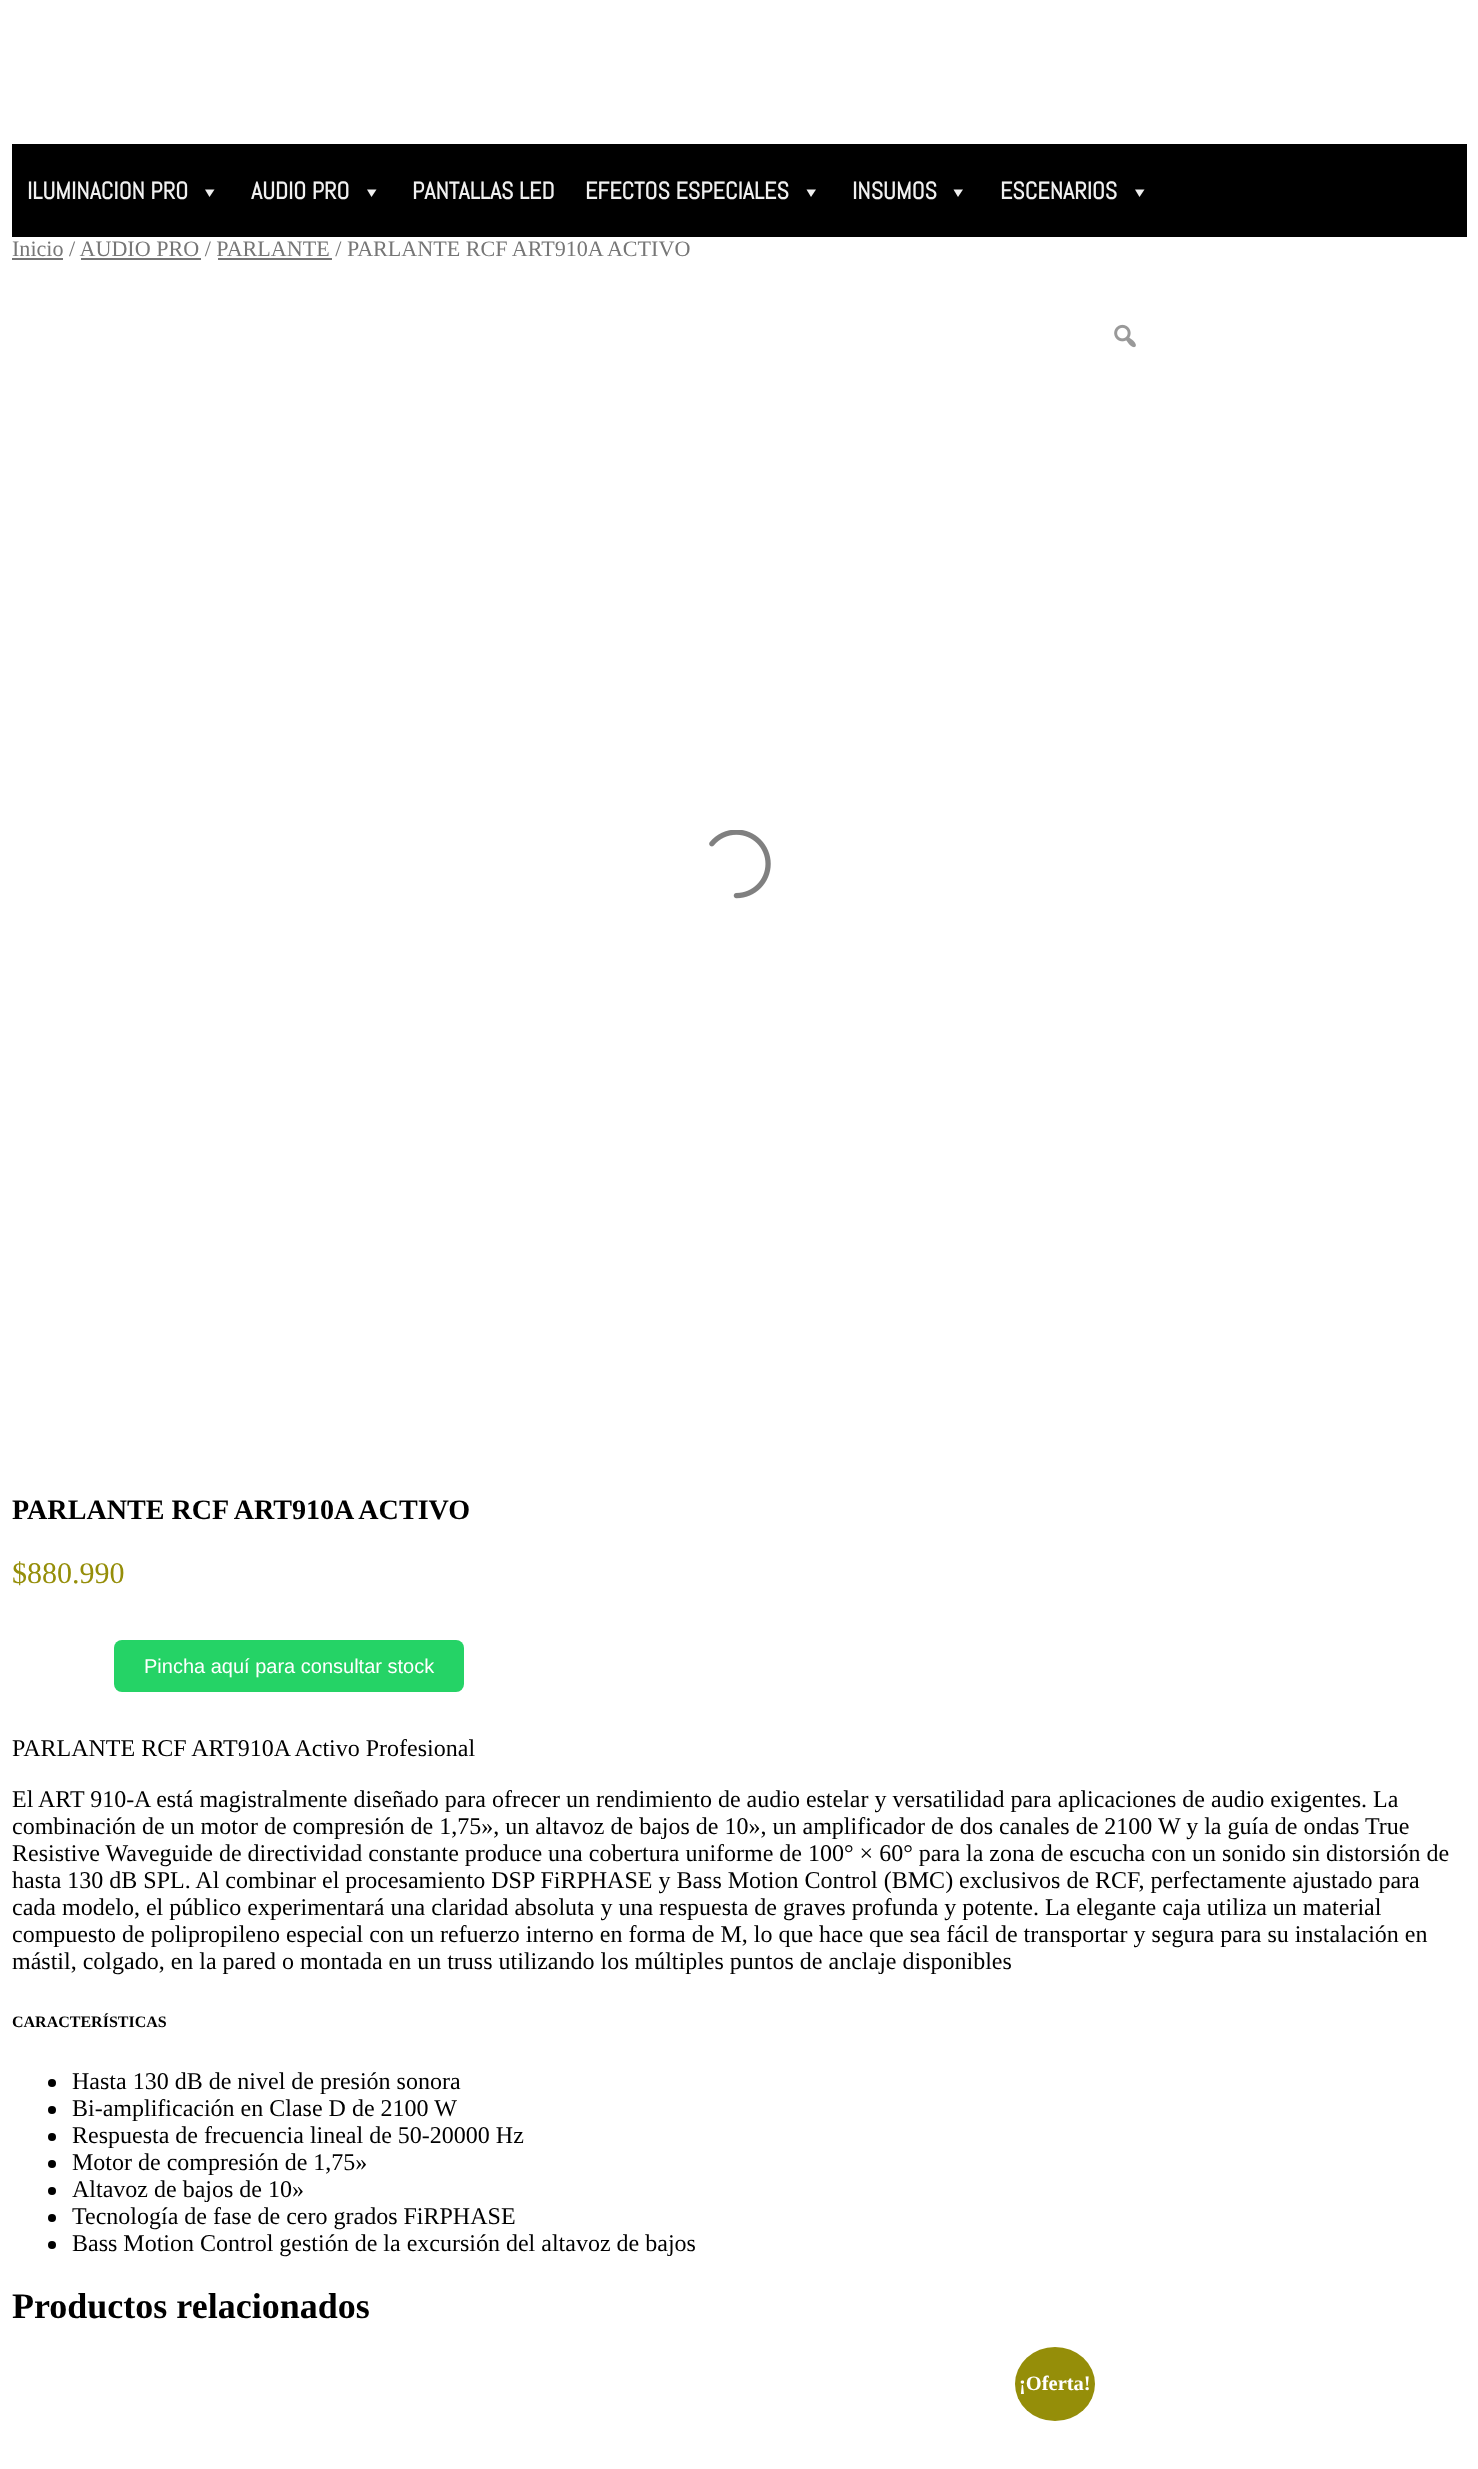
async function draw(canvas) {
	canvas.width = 1478;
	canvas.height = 2469;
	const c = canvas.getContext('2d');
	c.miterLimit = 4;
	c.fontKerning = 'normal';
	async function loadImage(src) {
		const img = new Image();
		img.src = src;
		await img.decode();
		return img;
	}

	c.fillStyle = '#fff';
	c.fillRect(0, 0, 1478, 2469);
	c.fillStyle = '#000';
	c.fillRect(12, 144, 1455, 93);
	c.font = 'bold 24px Abel';
	c.fillStyle = '#f0f0f0';
	c.fillText('ILUMINACION PRO', 27, 199);
	c.beginPath();
	c.moveTo(214.5, 189.5);
	c.lineTo(209.5, 197);
	c.lineTo(205, 189.5);
	c.closePath();
	c.fill();
	c.fillText('AUDIO PRO', 251, 199);
	c.beginPath();
	c.moveTo(376.5, 189.5);
	c.lineTo(371.5, 197);
	c.lineTo(367, 189.5);
	c.closePath();
	c.fill();
	c.fillText('PANTALLAS LED', 412, 199);
	c.fillText('EFECTOS ESPECIALES', 585, 199);
	c.beginPath();
	c.moveTo(816, 189.5);
	c.lineTo(811, 197);
	c.lineTo(806.5, 189.5);
	c.closePath();
	c.fill();
	c.fillText('INSUMOS', 852, 199);
	c.beginPath();
	c.moveTo(963, 189.5);
	c.lineTo(958, 197);
	c.lineTo(953.5, 189.5);
	c.closePath();
	c.fill();
	c.fillText('ESCENARIOS', 1000, 199);
	c.beginPath();
	c.moveTo(1144.5, 189.5);
	c.lineTo(1139.5, 197);
	c.lineTo(1135, 189.5);
	c.closePath();
	c.fill();
	c.font = '22.1px Liberation Serif';
	c.fillStyle = '#767676';
	c.fillText('Inicio / AUDIO PRO / PARLANTE / PARLANTE RCF ART910A ACTIVO', 12, 256);
	for (const [x, y, w, h, color] of [
		[12, 258, 51, 2, '#767676'],
		[81, 258, 120, 2, '#767676'],
		[218, 258, 114, 2, '#767676'],
	]) {
		c.fillStyle = color;
		c.fillRect(x, y, w, h);
	}
	c.drawImage(await loadImage('img1.png'), 1114, 324, 22, 24);
	c.drawImage(await loadImage('img2.png'), 709, 830, 62, 69);
	c.font = 'bold 28.1px Liberation Serif';
	c.fillStyle = '#000';
	c.fillText('PARLANTE RCF ART910A ACTIVO', 12, 1519);
	c.font = '30px Liberation Serif';
	c.fillStyle = '#958e09';
	c.fillText('$880.990', 12, 1583);
	c.fillStyle = '#25d366';
	c.beginPath();
	c.roundRect(114, 1640, 350, 52, 8);
	c.fill();
	c.font = '20px Liberation Sans';
	c.fillStyle = '#fff';
	c.fillText('Pincha aquí para consultar stock', 144, 1673);
	c.font = '24px Liberation Serif';
	c.fillStyle = '#000';
	for (const [text, x, y] of [
		['PARLANTE RCF ART910A Activo Profesional', 12, 1756],
		['El ART 910-A está magistralmente diseñado para ofrecer un rendimiento de audio estelar y versatilidad para aplicaciones de audio exigentes. La', 12, 1807],
		['combinación de un motor de compresión de 1,75», un altavoz de bajos de 10», un amplificador de dos canales de 2100 W y la guía de ondas True', 12, 1834],
		['Resistive Waveguide de directividad constante produce una cobertura uniforme de 100° × 60° para la zona de escucha con un sonido sin distorsión de', 12, 1861],
		['hasta 130 dB SPL. Al combinar el procesamiento DSP FiRPHASE y Bass Motion Control (BMC) exclusivos de RCF, perfectamente ajustado para', 12, 1888],
		['cada modelo, el público experimentará una claridad absoluta y una respuesta de graves profunda y potente. La elegante caja utiliza un material', 12, 1915],
		['compuesto de polipropileno especial con un refuerzo interno en forma de M, lo que hace que sea fácil de transportar y segura para su instalación en', 12, 1942],
		['mástil, colgado, en la pared o montada en un truss utilizando los múltiples puntos de anclaje disponibles', 12, 1969],
	]) {
		c.fillText(text, x, y);
	}
	c.font = 'bold 16px Liberation Serif';
	c.fillText('CARACTERÍSTICAS', 12, 2027);
	c.beginPath();
	c.arc(52, 2083, 4, 0, 2 * Math.PI);
	c.fill();
	c.font = '24px Liberation Serif';
	c.fillText('Hasta 130 dB de nivel de presión sonora', 72, 2089);
	c.beginPath();
	c.arc(52, 2110, 4, 0, 2 * Math.PI);
	c.fill();
	c.fillText('Bi-amplificación en Clase D de 2100 W', 72, 2116);
	c.beginPath();
	c.arc(52, 2137, 4, 0, 2 * Math.PI);
	c.fill();
	c.fillText('Respuesta de frecuencia lineal de 50-20000 Hz', 72, 2143);
	c.beginPath();
	c.arc(52, 2164, 4, 0, 2 * Math.PI);
	c.fill();
	c.fillText('Motor de compresión de 1,75»', 72, 2170);
	c.beginPath();
	c.arc(52, 2191, 4, 0, 2 * Math.PI);
	c.fill();
	c.fillText('Altavoz de bajos de 10»', 72, 2197);
	c.beginPath();
	c.arc(52, 2218, 4, 0, 2 * Math.PI);
	c.fill();
	c.fillText('Tecnología de fase de cero grados FiRPHASE', 72, 2224);
	c.beginPath();
	c.arc(52, 2245, 4, 0, 2 * Math.PI);
	c.fill();
	c.fillText('Bass Motion Control gestión de la excursión del altavoz de bajos', 72, 2251);
	c.font = 'bold 36px Liberation Serif';
	c.fillText('Productos relacionados', 12, 2318);
	c.fillStyle = '#958e09';
	c.beginPath();
	c.ellipse(1055, 2384, 40, 37, 0, 0, 2 * Math.PI);
	c.fill();
	c.font = 'bold 20.5px Liberation Serif';
	c.fillStyle = '#fff';
	c.fillText('¡Oferta!', 1019, 2390);
}

draw(document.querySelector('canvas'));
